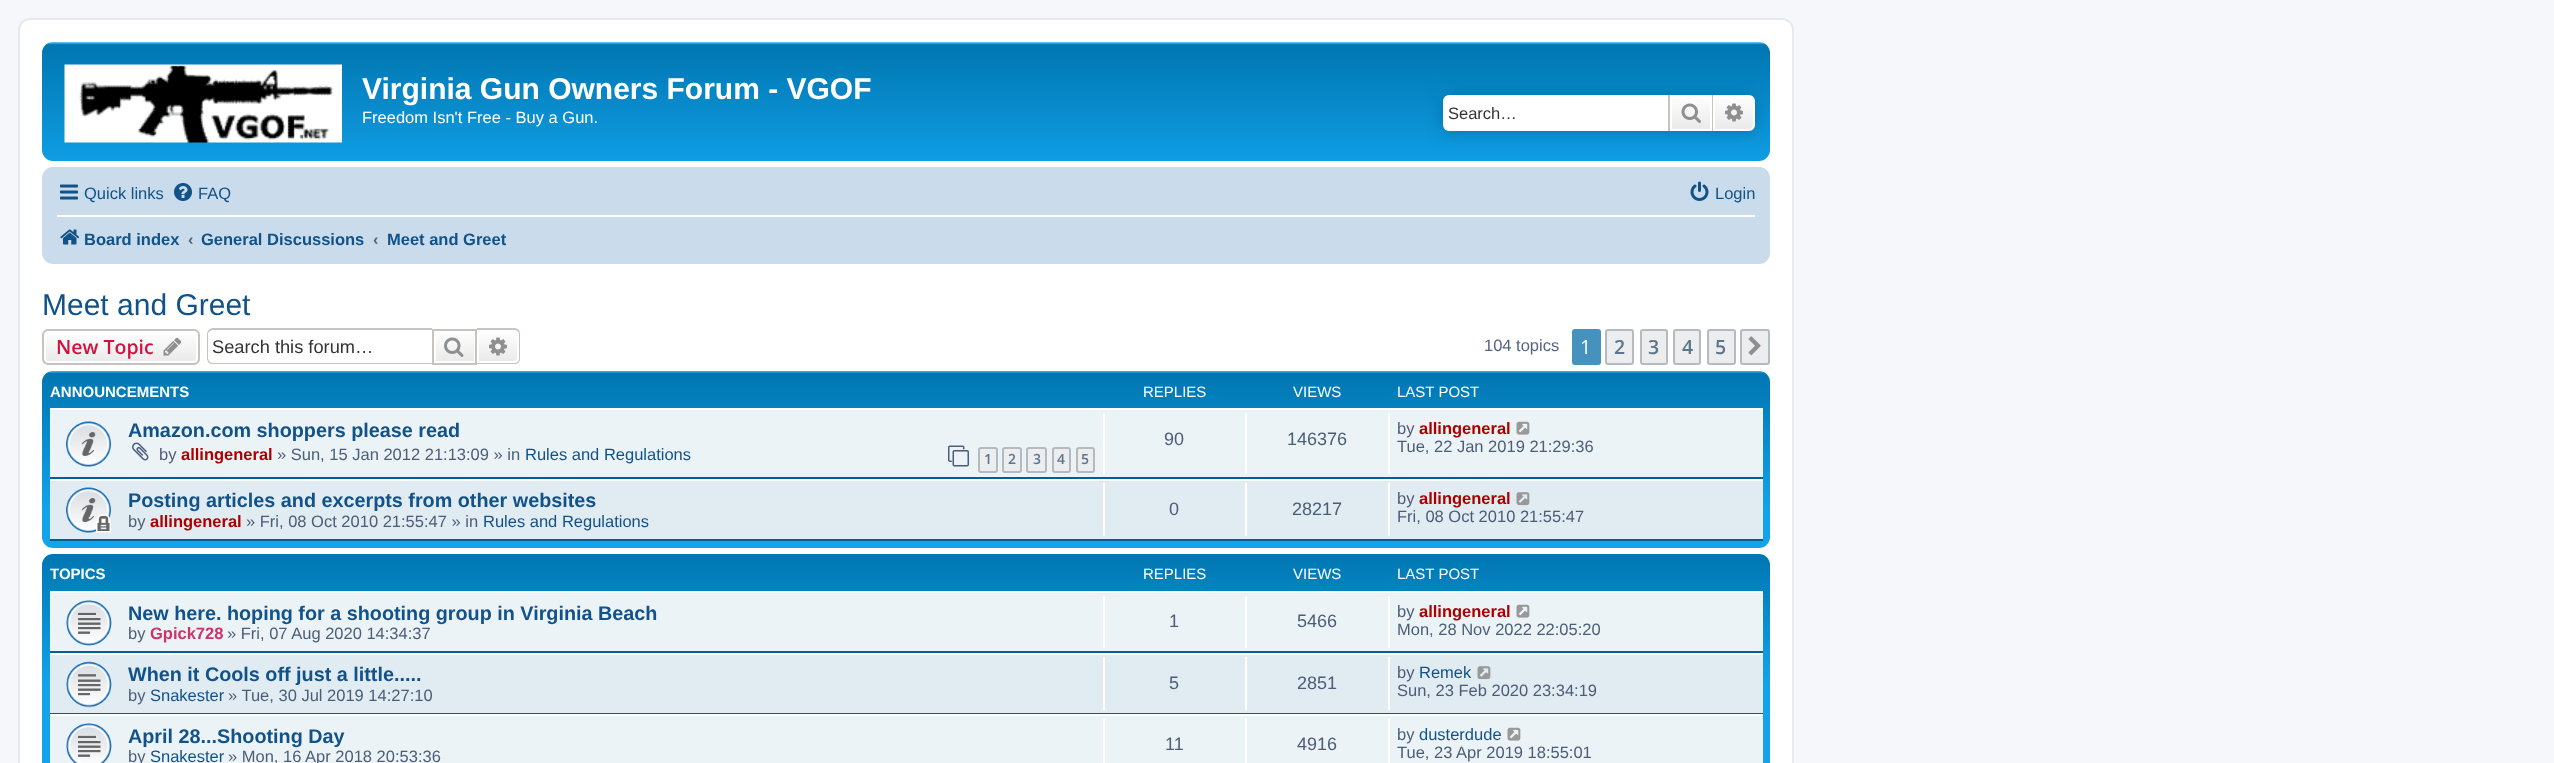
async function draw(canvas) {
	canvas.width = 2554;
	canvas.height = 763;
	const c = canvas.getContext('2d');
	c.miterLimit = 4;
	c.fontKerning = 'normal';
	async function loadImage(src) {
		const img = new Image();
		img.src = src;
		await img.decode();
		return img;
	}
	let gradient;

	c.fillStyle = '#f5f7fa';
	c.fillRect(0, 0, 2554, 763);
	c.fillStyle = '#fff';
	c.beginPath();
	c.roundRect(19, 19, 1774, 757, 11);
	c.fill();
	c.strokeStyle = '#e6e9ed';
	c.lineWidth = 2;
	c.stroke();
	gradient = c.createLinearGradient(906, 42, 906, 180);
	gradient.addColorStop(0, '#6aceff');
	gradient.addColorStop(0.02, '#0076b1');
	gradient.addColorStop(1, '#12a3eb');
	c.fillStyle = gradient;
	c.beginPath();
	c.roundRect(42, 42, 1728, 119, 11);
	c.fill();
	c.drawImage(await loadImage('img1.png'), 64, 64, 278, 79);
	c.font = 'bold 30px Liberation Sans';
	c.fillStyle = '#fff';
	c.fillText('Virginia Gun Owners Forum - VGOF', 362, 99);
	c.font = '16.5px Liberation Sans';
	c.fillText('Freedom Isn\'t Free - Buy a Gun.', 362, 123);
	c.fillStyle = '#0075b0';
	c.filter = 'blur(7.5px)';
	c.beginPath();
	c.roundRect(1443, 95, 312, 36, 6);
	c.fill();
	c.filter = 'none';
	c.fillStyle = '#fff';
	c.beginPath();
	c.roundRect(1443, 95, 225, 36, [6, 0, 0, 6]);
	c.fill();
	c.fillStyle = '#333';
	c.fillText('Search…', 1448, 119);
	gradient = c.createLinearGradient(1691, 95, 1691, 131);
	gradient.addColorStop(0, '#fff');
	gradient.addColorStop(1, '#e9e9e9');
	c.fillStyle = gradient;
	c.fillRect(1672, 97, 38, 32);
	c.strokeStyle = '#fff';
	c.strokeRect(1671, 96, 40, 34);
	c.fillStyle = '#c7c3bf';
	c.fillRect(1712, 95, 1, 36);
	c.fillRect(1668, 95, 2, 36);
	c.drawImage(await loadImage('img2.png'), 1681, 103, 20, 20);
	gradient = c.createLinearGradient(1734, 95, 1734, 131);
	gradient.addColorStop(0, '#fff');
	gradient.addColorStop(1, '#e9e9e9');
	c.fillStyle = gradient;
	c.beginPath();
	c.roundRect(1714, 96, 40, 34, [0, 5, 5, 0]);
	c.fill();
	c.stroke();
	c.drawImage(await loadImage('img3.png'), 1725, 103, 18, 19);
	c.fillStyle = '#cadceb';
	c.beginPath();
	c.roundRect(42, 167, 1728, 97, 11);
	c.fill();
	c.drawImage(await loadImage('img4.png'), 60, 184, 18, 16);
	c.fillStyle = '#105289';
	c.fillText('Quick links', 84, 199);
	c.drawImage(await loadImage('img5.png'), 174, 183, 18, 18);
	c.fillText('FAQ', 198, 199);
	c.drawImage(await loadImage('img6.png'), 1690, 181, 19, 20);
	c.fillText('Login', 1715, 199);
	c.fillStyle = '#fff';
	c.fillRect(57, 215, 1698, 2);
	c.drawImage(await loadImage('img7.png'), 60, 229, 20, 16);
	c.font = 'bold 16.5px Liberation Sans';
	c.fillStyle = '#105289';
	c.fillText('Board index', 84, 245);
	c.fillStyle = '#536482';
	c.fillText('‹', 188, 245);
	c.fillStyle = '#105289';
	c.fillText('General Discussions', 201, 245);
	c.fillStyle = '#536482';
	c.fillText('‹', 373, 245);
	c.fillStyle = '#105289';
	c.fillText('Meet and Greet', 387, 245);
	c.font = '30px Liberation Sans';
	c.fillText('Meet and Greet', 42, 315);
	c.save();
	c.beginPath();
	c.roundRect(42, 329, 158, 36, 6);
	c.clip();
	gradient = c.createLinearGradient(121, 330, 121, 363);
	gradient.addColorStop(0, '#fff');
	gradient.addColorStop(1, '#e9e9e9');
	c.fillStyle = gradient;
	c.fillRect(42, 330, 158, 33);
	c.restore();
	c.beginPath();
	c.roundRect(45, 331, 152, 31, 4);
	c.stroke();
	c.beginPath();
	c.roundRect(43, 330, 156, 34, 5);
	c.strokeStyle = '#c7c3bf';
	c.stroke();
	c.font = '600 19.5px Open Sans';
	c.fillStyle = '#d31141';
	c.fillText('New Topic', 56, 354);
	c.drawImage(await loadImage('img8.png'), 163, 337, 19, 19);
	c.fillStyle = '#c7c3bf';
	c.beginPath();
	c.moveTo(213, 328);
	c.lineTo(432, 328);
	c.lineTo(432, 364);
	c.lineTo(213, 364);
	c.bezierCurveTo(210, 364, 207, 362, 207, 358);
	c.lineTo(207, 334);
	c.bezierCurveTo(207, 331, 210, 328, 213, 328);
	c.closePath();
	c.moveTo(213, 330);
	c.lineTo(432, 330);
	c.lineTo(432, 363);
	c.lineTo(213, 363);
	c.bezierCurveTo(211, 363, 208, 361, 208, 358);
	c.lineTo(208, 334);
	c.bezierCurveTo(208, 332, 211, 330, 213, 330);
	c.closePath();
	c.fill('evenodd');
	c.font = '18.25px Liberation Sans';
	c.fillStyle = '#333';
	c.fillText('Search this forum…', 212, 353);
	gradient = c.createLinearGradient(455, 330, 455, 363);
	gradient.addColorStop(0, '#fff');
	gradient.addColorStop(1, '#e9e9e9');
	c.fillStyle = gradient;
	c.fillRect(436, 334, 38, 27);
	c.strokeRect(433, 330, 43, 34);
	c.drawImage(await loadImage('img9.png'), 444, 337, 20, 20);
	gradient = c.createLinearGradient(498, 330, 498, 363);
	gradient.addColorStop(0, '#fff');
	gradient.addColorStop(1, '#e9e9e9');
	c.fillStyle = gradient;
	c.beginPath();
	c.roundRect(478, 331, 40, 31, [0, 4, 4, 0]);
	c.fill();
	c.strokeStyle = '#fff';
	c.stroke();
	c.fillStyle = '#c7c3bf';
	c.beginPath();
	c.moveTo(477, 328);
	c.lineTo(514, 328);
	c.bezierCurveTo(518, 328, 520, 331, 520, 334);
	c.lineTo(520, 358);
	c.bezierCurveTo(520, 362, 518, 364, 514, 364);
	c.lineTo(477, 364);
	c.closePath();
	c.moveTo(477, 330);
	c.lineTo(514, 330);
	c.bezierCurveTo(517, 330, 519, 332, 519, 334);
	c.lineTo(519, 358);
	c.bezierCurveTo(519, 361, 517, 363, 514, 363);
	c.lineTo(477, 363);
	c.closePath();
	c.fill('evenodd');
	c.drawImage(await loadImage('img10.png'), 489, 337, 18, 19);
	c.font = '16.5px Liberation Sans';
	c.fillStyle = '#536482';
	c.fillText('104 topics', 1484, 351);
	c.fillStyle = '#4692bf';
	c.beginPath();
	c.roundRect(1573, 330, 27, 34, 2);
	c.fill();
	c.strokeStyle = '#4692bf';
	c.stroke();
	c.font = '19.5px Open Sans';
	c.fillStyle = '#fff';
	c.fillText('1', 1580, 354);
	c.fillStyle = '#ecedee';
	c.beginPath();
	c.roundRect(1606, 330, 27, 34, 2);
	c.fill();
	c.strokeStyle = '#b4bac0';
	c.stroke();
	c.font = '600 19.5px Open Sans';
	c.fillStyle = '#5c758c';
	c.fillText('2', 1614, 354);
	c.fillStyle = '#ecedee';
	c.beginPath();
	c.roundRect(1641, 330, 26, 34, 2);
	c.fill();
	c.stroke();
	c.fillStyle = '#5c758c';
	c.fillText('3', 1648, 354);
	c.fillStyle = '#ecedee';
	c.beginPath();
	c.roundRect(1674, 330, 26, 34, 2);
	c.fill();
	c.stroke();
	c.fillStyle = '#5c758c';
	c.fillText('4', 1682, 354);
	c.fillStyle = '#ecedee';
	c.beginPath();
	c.roundRect(1708, 330, 27, 34, 2);
	c.fill();
	c.stroke();
	c.fillStyle = '#5c758c';
	c.fillText('5', 1715, 354);
	c.fillStyle = '#ecedee';
	c.beginPath();
	c.roundRect(1741, 330, 28, 34, 2);
	c.fill();
	c.stroke();
	c.drawImage(await loadImage('img11.png'), 1748, 336, 13, 20);
	gradient = c.createLinearGradient(906, 370, 906, 548);
	gradient.addColorStop(0, '#6aceff');
	gradient.addColorStop(0.02, '#0076b1');
	gradient.addColorStop(0.78, '#12a3eb');
	gradient.addColorStop(1, '#12a3eb');
	c.fillStyle = gradient;
	c.beginPath();
	c.roundRect(42, 371, 1728, 177, 11);
	c.fill();
	c.font = 'bold 15px Liberation Sans';
	c.fillStyle = '#fff';
	c.fillText('ANNOUNCEMENTS', 50, 397);
	c.font = '15px Liberation Sans';
	for (const [text, x, y] of [
		['REPLIES', 1143, 397],
		['VIEWS', 1293, 397],
		['LAST POST', 1397, 397],
	]) {
		c.fillText(text, x, y);
	}
	for (const [x, y, w, h, color] of [
		[50, 410, 1713, 67, '#ecf3f7'],
		[50, 408, 1713, 2, '#fff'],
		[50, 477, 1713, 2, '#00608f'],
	]) {
		c.fillStyle = color;
		c.fillRect(x, y, w, h);
	}
	c.drawImage(await loadImage('img12.png'), 66, 421, 45, 46);
	c.font = 'bold 19.8px Liberation Sans';
	c.fillStyle = '#105289';
	c.fillText('Amazon.com shoppers please read', 128, 437);
	c.drawImage(await loadImage('img13.png'), 132, 442, 17, 19);
	c.font = '16.5px Liberation Sans';
	c.fillStyle = '#4c5d77';
	c.fillText('by', 159, 460);
	c.font = 'bold 16.5px Liberation Sans';
	c.fillStyle = '#a00';
	c.fillText('allingeneral', 181, 460);
	c.font = '16.5px Liberation Sans';
	c.fillStyle = '#4c5d77';
	c.fillText('» Sun, 15 Jan 2012 21:13:09 » in', 277, 460);
	c.fillStyle = '#105289';
	c.fillText('Rules and Regulations', 525, 460);
	c.drawImage(await loadImage('img14.png'), 948, 445, 21, 22);
	c.fillStyle = '#ecedee';
	c.beginPath();
	c.roundRect(979, 448, 18, 24, 2);
	c.fill();
	c.stroke();
	c.font = '600 14px Open Sans';
	c.fillStyle = '#5c758c';
	c.fillText('1', 984, 464);
	c.fillStyle = '#ecedee';
	c.beginPath();
	c.roundRect(1003, 448, 18, 24, 2);
	c.fill();
	c.stroke();
	c.fillStyle = '#5c758c';
	c.fillText('2', 1008, 464);
	c.fillStyle = '#ecedee';
	c.beginPath();
	c.roundRect(1027, 448, 19, 24, 2);
	c.fill();
	c.stroke();
	c.fillStyle = '#5c758c';
	c.fillText('3', 1033, 464);
	c.fillStyle = '#ecedee';
	c.beginPath();
	c.roundRect(1053, 448, 17, 24, 2);
	c.fill();
	c.stroke();
	c.fillStyle = '#5c758c';
	c.fillText('4', 1057, 464);
	c.fillStyle = '#ecedee';
	c.beginPath();
	c.roundRect(1077, 448, 17, 24, 2);
	c.fill();
	c.stroke();
	c.fillStyle = '#5c758c';
	c.fillText('5', 1081, 464);
	c.fillStyle = '#fff';
	c.fillRect(1103, 413, 2, 61);
	c.font = '18px Liberation Sans';
	c.fillStyle = '#4c5d77';
	c.fillText('90', 1164, 445);
	c.fillStyle = '#fff';
	c.fillRect(1245, 413, 2, 61);
	c.fillStyle = '#4c5d77';
	c.fillText('146376', 1287, 445);
	c.fillStyle = '#fff';
	c.fillRect(1388, 413, 2, 61);
	c.font = '16.5px Liberation Sans';
	c.fillStyle = '#4c5d77';
	c.fillText('by', 1397, 434);
	c.font = 'bold 16.5px Liberation Sans';
	c.fillStyle = '#a00';
	c.fillText('allingeneral', 1419, 434);
	c.drawImage(await loadImage('img15.png'), 1516, 421, 14, 14);
	c.font = '16.5px Liberation Sans';
	c.fillStyle = '#4c5d77';
	c.fillText('Tue, 22 Jan 2019 21:29:36', 1397, 452);
	for (const [x, y, w, h, color] of [
		[50, 481, 1713, 58, '#e1ebf2'],
		[50, 479, 1713, 2, '#fff'],
		[50, 539, 1713, 2, '#00608f'],
	]) {
		c.fillStyle = color;
		c.fillRect(x, y, w, h);
	}
	c.drawImage(await loadImage('img16.png'), 66, 487, 45, 46);
	c.font = 'bold 19.8px Liberation Sans';
	c.fillStyle = '#105289';
	c.fillText('Posting articles and excerpts from other websites', 128, 507);
	c.font = '16.5px Liberation Sans';
	c.fillStyle = '#4c5d77';
	c.fillText('by', 128, 527);
	c.font = 'bold 16.5px Liberation Sans';
	c.fillStyle = '#a00';
	c.fillText('allingeneral', 150, 527);
	c.font = '16.5px Liberation Sans';
	c.fillStyle = '#4c5d77';
	c.fillText('» Fri, 08 Oct 2010 21:55:47 » in', 246, 527);
	c.fillStyle = '#105289';
	c.fillText('Rules and Regulations', 483, 527);
	c.fillStyle = '#fff';
	c.fillRect(1103, 483, 2, 53);
	c.font = '18px Liberation Sans';
	c.fillStyle = '#4c5d77';
	c.fillText('0', 1169, 515);
	c.fillStyle = '#fff';
	c.fillRect(1245, 483, 2, 53);
	c.fillStyle = '#4c5d77';
	c.fillText('28217', 1292, 515);
	c.fillStyle = '#fff';
	c.fillRect(1388, 483, 2, 53);
	c.font = '16.5px Liberation Sans';
	c.fillStyle = '#4c5d77';
	c.fillText('by', 1397, 504);
	c.font = 'bold 16.5px Liberation Sans';
	c.fillStyle = '#a00';
	c.fillText('allingeneral', 1419, 504);
	c.drawImage(await loadImage('img17.png'), 1516, 492, 14, 14);
	c.font = '16.5px Liberation Sans';
	c.fillStyle = '#4c5d77';
	c.fillText('Fri, 08 Oct 2010 21:55:47', 1397, 522);
	gradient = c.createLinearGradient(906, 553, 906, 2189);
	gradient.addColorStop(0, '#6aceff');
	gradient.addColorStop(0, '#0076b1');
	gradient.addColorStop(0.08, '#12a3eb');
	gradient.addColorStop(1, '#12a3eb');
	c.fillStyle = gradient;
	c.beginPath();
	c.roundRect(42, 554, 1728, 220, 11);
	c.fill();
	c.save();
	c.beginPath();
	c.rect(50, 561, 1713, 30);
	c.clip();
	c.font = 'bold 15px Liberation Sans';
	c.fillStyle = '#fff';
	c.fillText('TOPICS', 50, 579);
	c.restore();
	c.font = '15px Liberation Sans';
	c.fillStyle = '#fff';
	for (const [text, x, y] of [
		['REPLIES', 1143, 579],
		['VIEWS', 1293, 579],
		['LAST POST', 1397, 579],
	]) {
		c.fillText(text, x, y);
	}
	for (const [x, y, w, h, color] of [
		[50, 593, 1713, 58, '#ecf3f7'],
		[50, 591, 1713, 2, '#fff'],
		[50, 651, 1713, 2, '#00608f'],
	]) {
		c.fillStyle = color;
		c.fillRect(x, y, w, h);
	}
	c.drawImage(await loadImage('img18.png'), 66, 600, 46, 46);
	c.font = 'bold 19.8px Liberation Sans';
	c.fillStyle = '#105289';
	c.fillText('New here. hoping for a shooting group in Virginia Beach', 128, 620);
	c.font = '16.5px Liberation Sans';
	c.fillStyle = '#4c5d77';
	c.fillText('by', 128, 639);
	c.font = 'bold 16.5px Liberation Sans';
	c.fillStyle = '#c36';
	c.fillText('Gpick728', 150, 639);
	c.font = '16.5px Liberation Sans';
	c.fillStyle = '#4c5d77';
	c.fillText('» Fri, 07 Aug 2020 14:34:37', 227, 639);
	c.fillStyle = '#fff';
	c.fillRect(1103, 596, 2, 52);
	c.font = '18px Liberation Sans';
	c.fillStyle = '#4c5d77';
	c.fillText('1', 1169, 627);
	c.fillStyle = '#fff';
	c.fillRect(1245, 596, 2, 52);
	c.fillStyle = '#4c5d77';
	c.fillText('5466', 1297, 627);
	c.fillStyle = '#fff';
	c.fillRect(1388, 596, 2, 52);
	c.font = '16.5px Liberation Sans';
	c.fillStyle = '#4c5d77';
	c.fillText('by', 1397, 617);
	c.font = 'bold 16.5px Liberation Sans';
	c.fillStyle = '#a00';
	c.fillText('allingeneral', 1419, 617);
	c.drawImage(await loadImage('img15.png'), 1516, 604, 14, 14);
	c.font = '16.5px Liberation Sans';
	c.fillStyle = '#4c5d77';
	c.fillText('Mon, 28 Nov 2022 22:05:20', 1397, 635);
	for (const [x, y, w, h, color] of [
		[50, 655, 1713, 58, '#e1ebf2'],
		[50, 653, 1713, 2, '#fff'],
		[50, 713, 1713, 1, '#00608f'],
	]) {
		c.fillStyle = color;
		c.fillRect(x, y, w, h);
	}
	c.drawImage(await loadImage('img19.png'), 66, 661, 46, 47);
	c.font = 'bold 19.8px Liberation Sans';
	c.fillStyle = '#105289';
	c.fillText('When it Cools off just a little.....', 128, 681);
	c.font = '16.5px Liberation Sans';
	c.fillStyle = '#4c5d77';
	c.fillText('by', 128, 701);
	c.fillStyle = '#105289';
	c.fillText('Snakester', 150, 701);
	c.fillStyle = '#4c5d77';
	c.fillText('» Tue, 30 Jul 2019 14:27:10', 228, 701);
	c.fillStyle = '#fff';
	c.fillRect(1103, 657, 2, 53);
	c.font = '18px Liberation Sans';
	c.fillStyle = '#4c5d77';
	c.fillText('5', 1169, 689);
	c.fillStyle = '#fff';
	c.fillRect(1245, 657, 2, 53);
	c.fillStyle = '#4c5d77';
	c.fillText('2851', 1297, 689);
	c.fillStyle = '#fff';
	c.fillRect(1388, 657, 2, 53);
	c.font = '16.5px Liberation Sans';
	c.fillStyle = '#4c5d77';
	c.fillText('by', 1397, 678);
	c.fillStyle = '#105289';
	c.fillText('Remek', 1419, 678);
	c.drawImage(await loadImage('img17.png'), 1477, 666, 14, 14);
	c.fillStyle = '#4c5d77';
	c.fillText('Sun, 23 Feb 2020 23:34:19', 1397, 696);
	c.fillStyle = '#ecf3f7';
	c.fillRect(50, 716, 1713, 47);
	c.fillStyle = '#fff';
	c.fillRect(50, 714, 1713, 2);
	c.drawImage(await loadImage('img20.png'), 66, 723, 46, 40);
	c.font = 'bold 19.8px Liberation Sans';
	c.fillStyle = '#105289';
	c.fillText('April 28...Shooting Day', 128, 743);
	c.font = '16.5px Liberation Sans';
	c.fillStyle = '#4c5d77';
	c.fillText('by', 128, 762);
	c.fillStyle = '#105289';
	c.fillText('Snakester', 150, 762);
	c.fillStyle = '#4c5d77';
	c.fillText('» Mon, 16 Apr 2018 20:53:36', 228, 762);
	c.fillStyle = '#fff';
	c.fillRect(1103, 719, 2, 44);
	c.font = '18px Liberation Sans';
	c.fillStyle = '#4c5d77';
	c.fillText('11', 1165, 750);
	c.fillStyle = '#fff';
	c.fillRect(1245, 719, 2, 44);
	c.fillStyle = '#4c5d77';
	c.fillText('4916', 1297, 750);
	c.fillStyle = '#fff';
	c.fillRect(1388, 719, 2, 44);
	c.font = '16.5px Liberation Sans';
	c.fillStyle = '#4c5d77';
	c.fillText('by', 1397, 740);
	c.fillStyle = '#105289';
	c.fillText('dusterdude', 1419, 740);
	c.drawImage(await loadImage('img15.png'), 1507, 727, 14, 14);
	c.fillStyle = '#4c5d77';
	c.fillText('Tue, 23 Apr 2019 18:55:01', 1397, 758);
}

draw(document.querySelector('canvas'));
